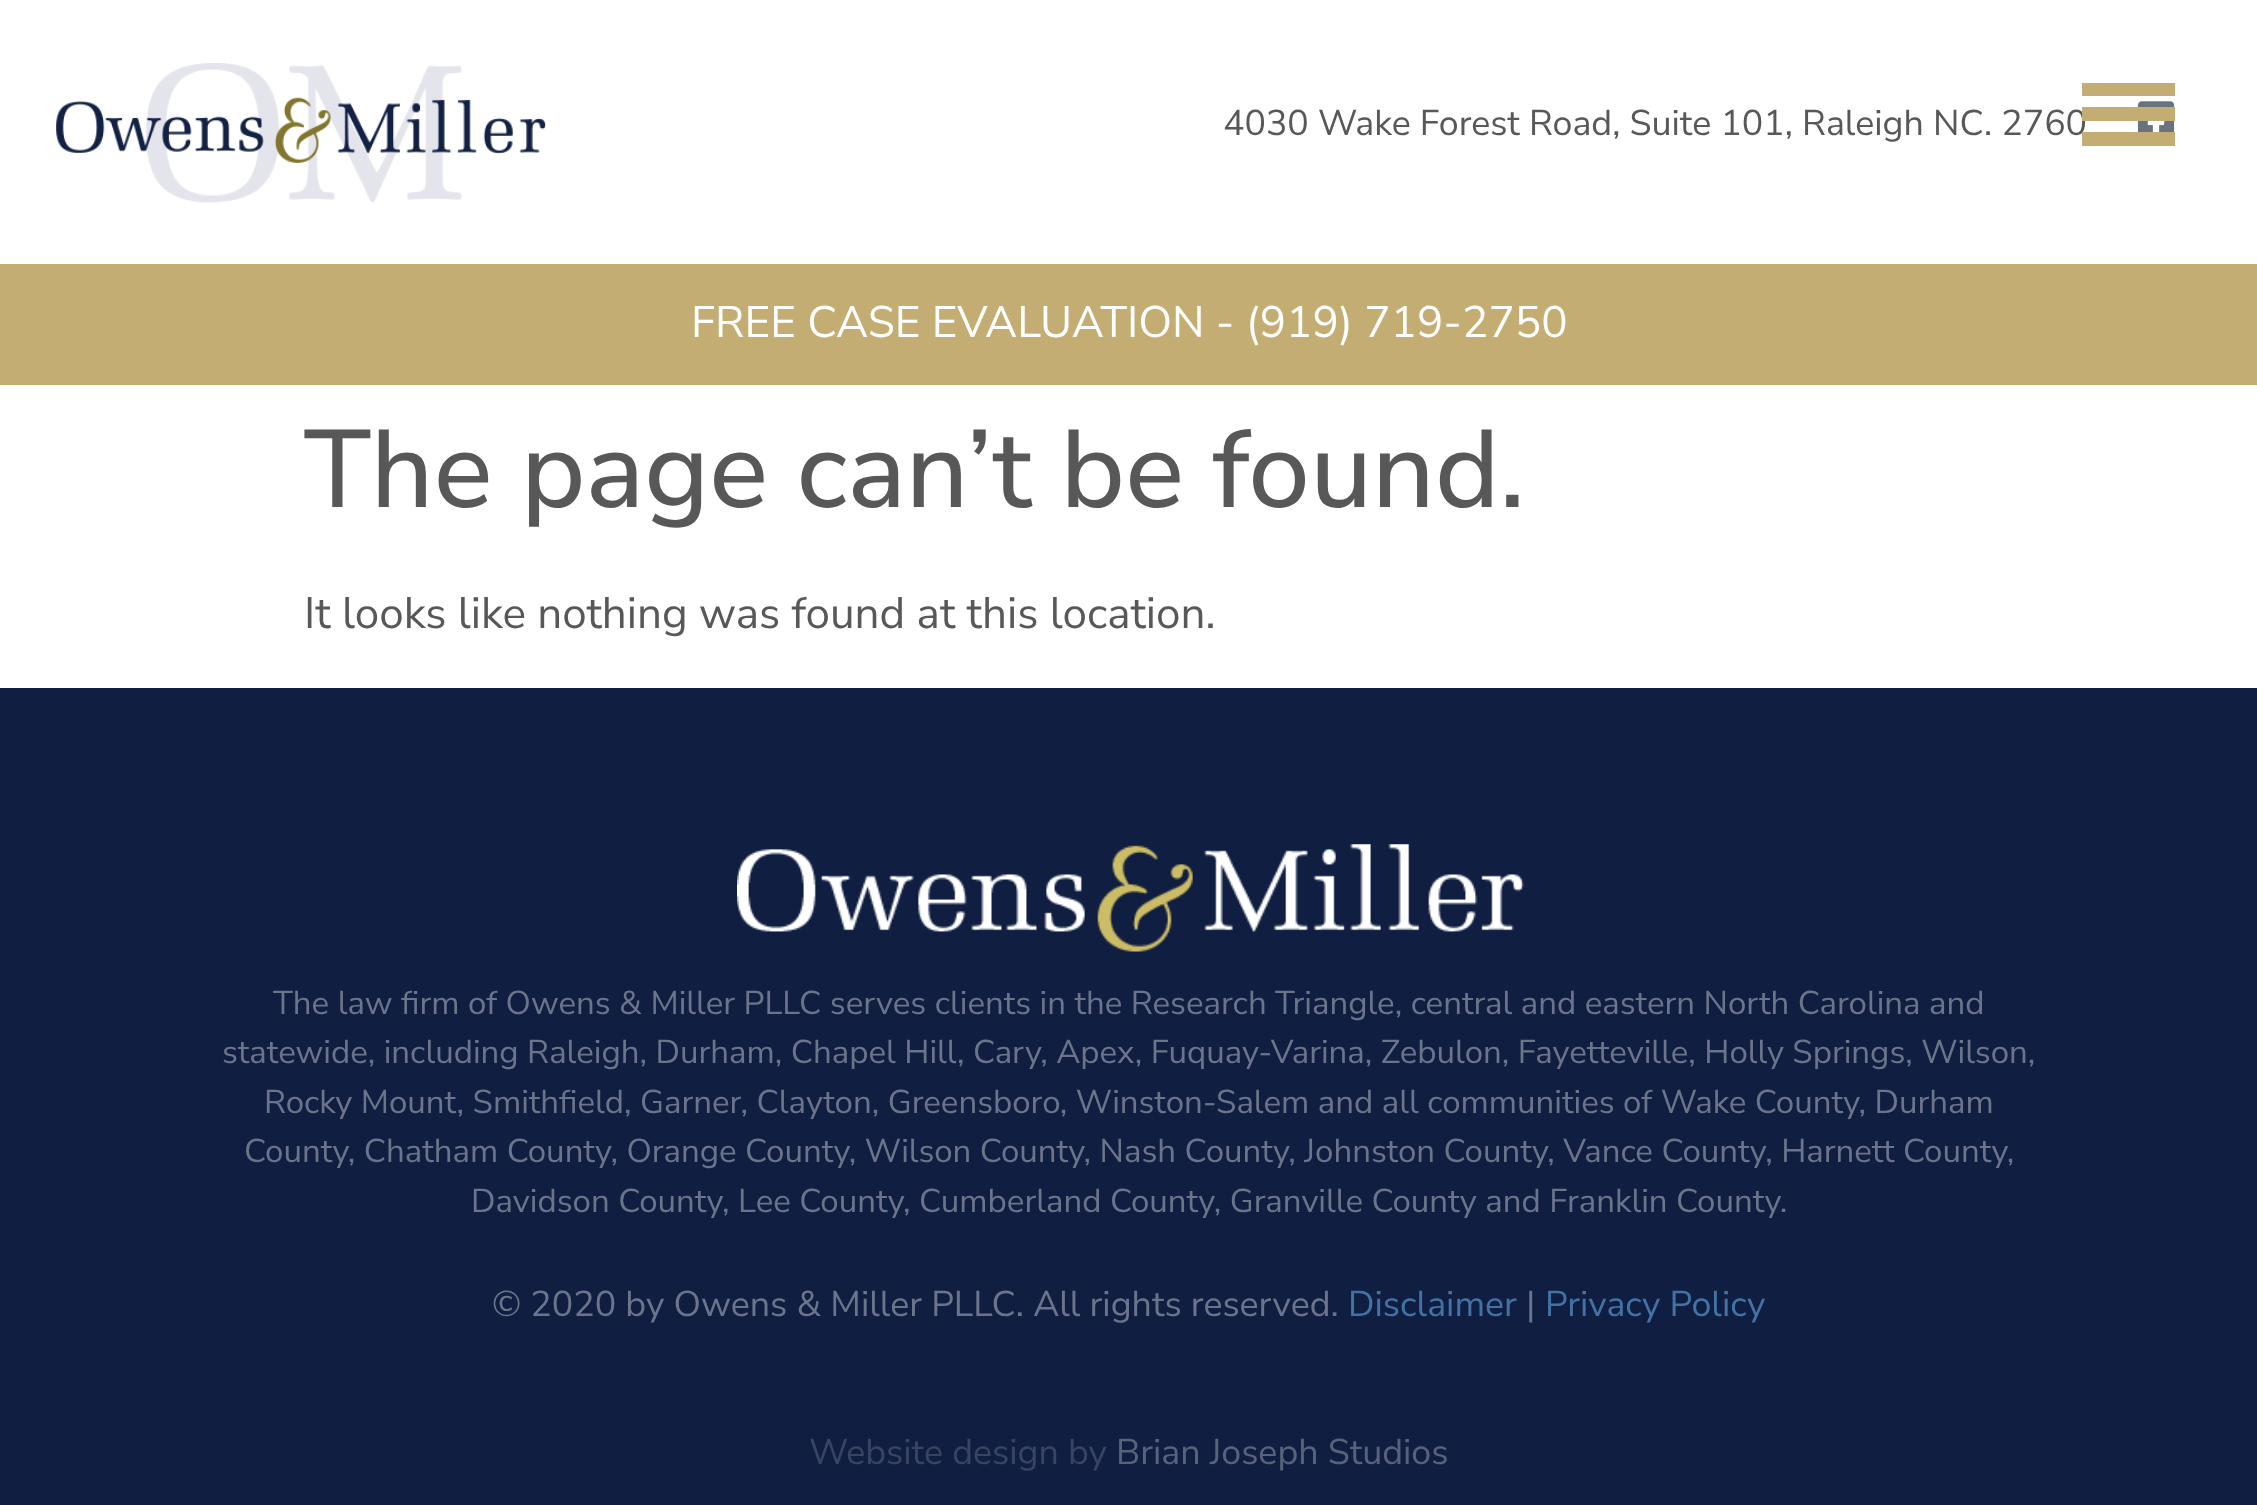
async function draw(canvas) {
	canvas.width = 2257;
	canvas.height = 1505;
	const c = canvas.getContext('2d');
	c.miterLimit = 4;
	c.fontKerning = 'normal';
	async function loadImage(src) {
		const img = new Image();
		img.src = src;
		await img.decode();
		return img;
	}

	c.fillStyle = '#fff';
	c.fillRect(0, 0, 2257, 1505);
	c.drawImage(await loadImage('img1.png'), 56, 63, 490, 140);
	c.font = '35.75px Nunito Sans';
	c.fillStyle = '#585858';
	c.fillText('4030 Wake Forest Road, Suite 101, Raleigh NC. 2760', 1223, 135);
	c.drawImage(await loadImage('img2.png'), 2137, 101, 38, 31);
	for (const [x, y, w, h, color] of [
		[2082, 107, 93, 14, '#c3ad72'],
		[2082, 83, 93, 13, '#c3ad72'],
		[2082, 132, 93, 14, '#c3ad72'],
		[0, 264, 2257, 121, '#c3ad72'],
	]) {
		c.fillStyle = color;
		c.fillRect(x, y, w, h);
	}
	c.font = '44px Nunito Sans';
	c.fillStyle = '#fff';
	c.fillText('FREE CASE EVALUATION - (919) 719-2750', 691, 337);
	c.font = '500 110px Nunito Sans';
	c.fillStyle = '#585858';
	c.fillText('The page can’t be found.', 304, 507);
	c.font = '44px Nunito Sans';
	c.fillText('It looks like nothing was found at this location.', 304, 628);
	c.fillStyle = '#101e42';
	c.fillRect(0, 688, 2257, 817);
	c.drawImage(await loadImage('img3.png'), 737, 844, 787, 108);
	c.font = '33px Nunito Sans';
	c.fillStyle = '#6b748a';
	for (const [text, x, y] of [
		['The law firm of Owens & Miller PLLC serves clients in the Research Triangle, central and eastern North Carolina and', 273, 1014],
		['statewide, including Raleigh, Durham, Chapel Hill, Cary, Apex, Fuquay-Varina, Zebulon, Fayetteville, Holly Springs, Wilson,', 222, 1063],
		['Rocky Mount, Smithfield, Garner, Clayton, Greensboro, Winston-Salem and all communities of Wake County, Durham', 264, 1113],
		['County, Chatham County, Orange County, Wilson County, Nash County, Johnston County, Vance County, Harnett County,', 244, 1162],
		['Davidson County, Lee County, Cumberland County, Granville County and Franklin County.', 471, 1212],
	]) {
		c.fillText(text, x, y);
	}
	c.font = '35.75px Nunito Sans';
	c.fillText('© 2020 by Owens & Miller PLLC. All rights reserved.', 492, 1316);
	c.fillStyle = '#4273a5';
	c.fillText('Disclaimer', 1348, 1316);
	c.fillStyle = '#6b748a';
	c.fillText('|', 1526, 1316);
	c.fillStyle = '#4273a5';
	c.fillText('Privacy Policy', 1545, 1316);
	c.fillStyle = '#394462';
	c.fillText('Website design by', 809, 1464);
	c.fillStyle = '#58627b';
	c.fillText('Brian Joseph Studios', 1116, 1464);
}

draw(document.querySelector('canvas'));
